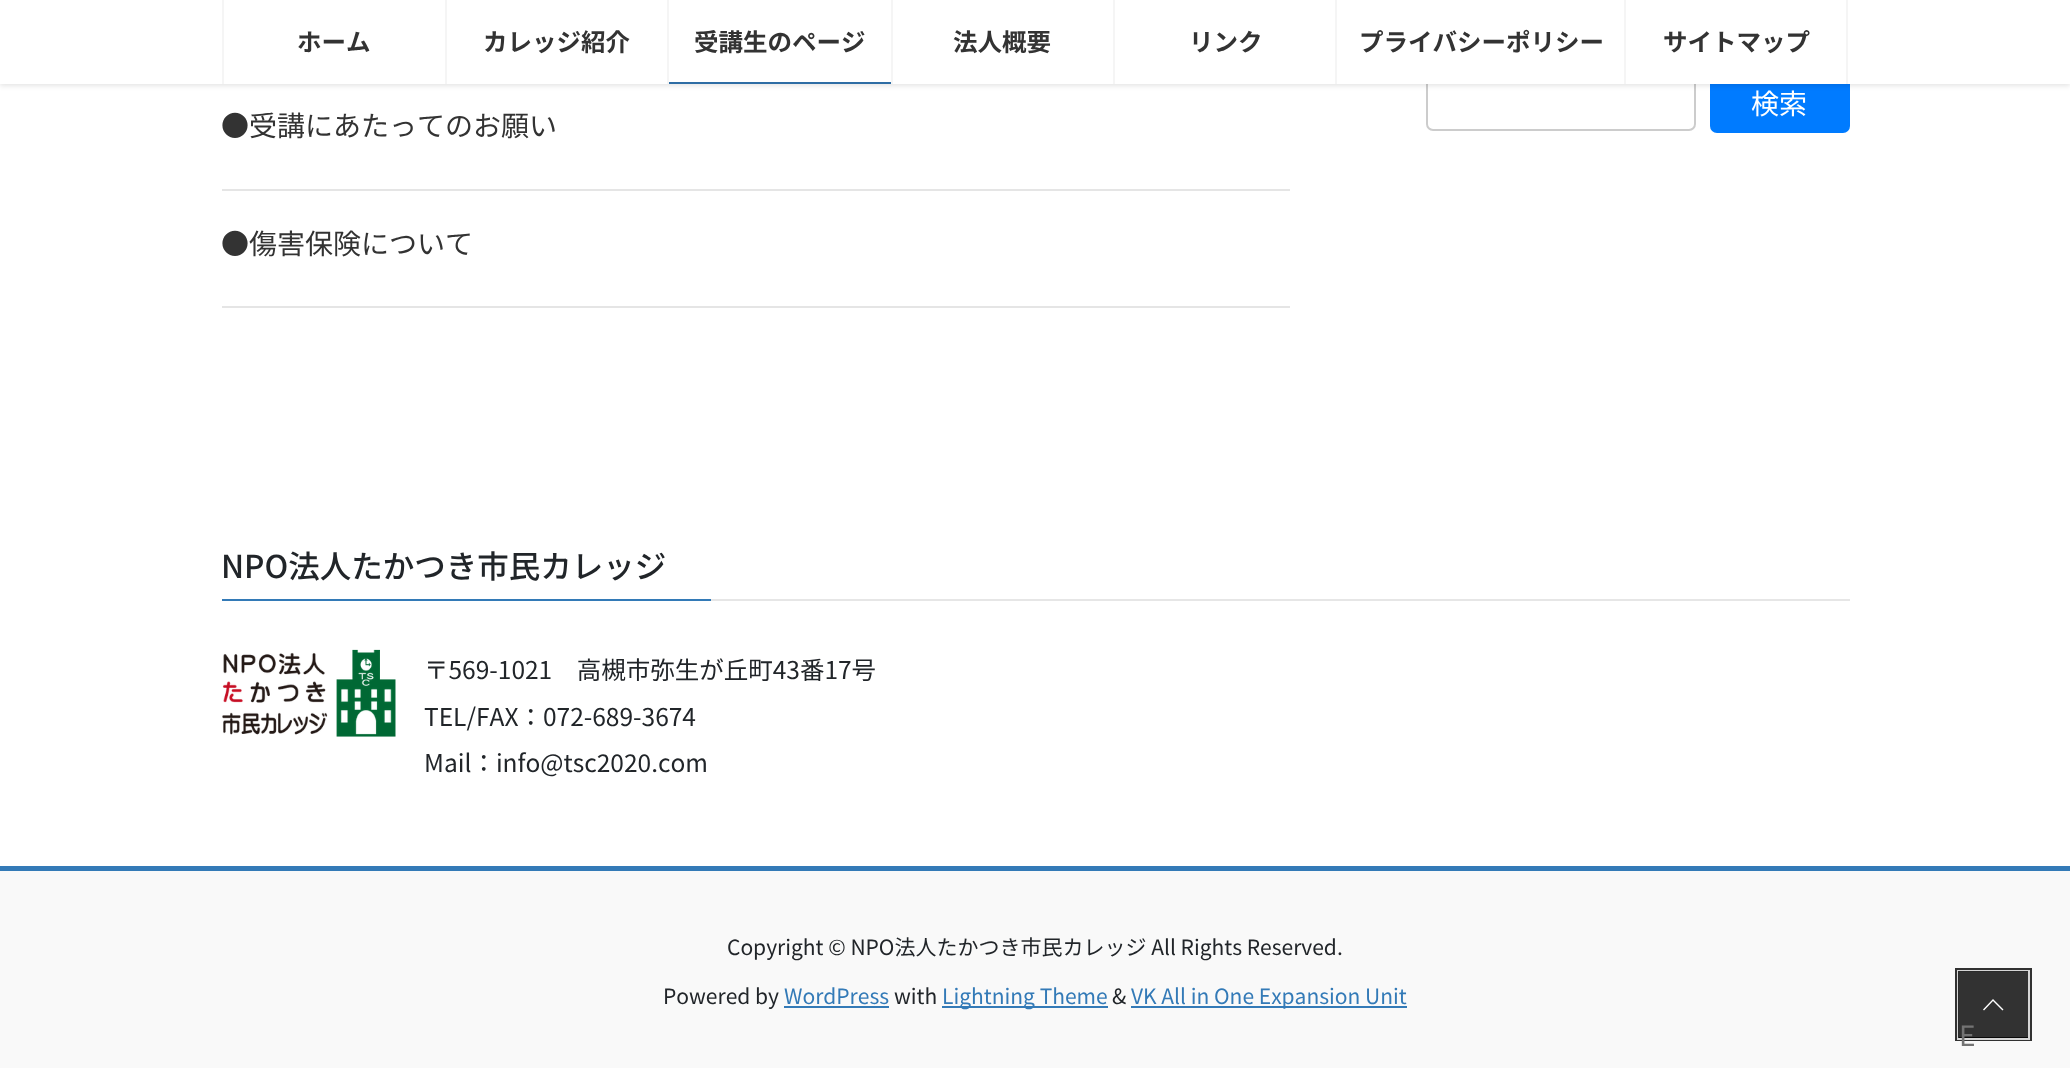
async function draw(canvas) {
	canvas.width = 2070;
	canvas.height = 1068;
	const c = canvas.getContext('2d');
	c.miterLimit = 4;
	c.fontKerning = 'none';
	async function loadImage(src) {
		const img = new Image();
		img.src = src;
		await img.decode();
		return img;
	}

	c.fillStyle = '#fff';
	c.fillRect(0, 0, 2070, 1068);
	c.beginPath();
	c.roundRect(1427, 71, 268, 59, 6);
	c.strokeStyle = '#ccc';
	c.lineWidth = 2;
	c.stroke();
	c.fillStyle = '#007bff';
	c.beginPath();
	c.roundRect(1710, 70, 140, 63, 7);
	c.fill();
	c.fillStyle = '#0000001a';
	c.filter = 'blur(2.5px)';
	c.beginPath();
	c.rect(0, 2, 2070, 84);
	c.fill();
	c.filter = 'none';
	c.fillStyle = '#fff';
	c.fillRect(0, 0, 2070, 84);
	c.fillStyle = '#f5f5f5';
	c.fillRect(222, 0, 2, 84);
	c.font = 'bold 24.5px Noto Sans JP';
	c.fillStyle = '#333';
	c.fillText('ホーム', 297, 51);
	c.fillStyle = '#f5f5f5';
	c.fillRect(445, 0, 2, 84);
	c.fillStyle = '#333';
	c.fillText('カレッジ紹介', 483, 51);
	c.fillStyle = '#f5f5f5';
	c.fillRect(667, 0, 2, 84);
	c.fillStyle = '#333';
	c.fillText('受講生のページ', 694, 51);
	c.fillStyle = '#2e6da4';
	c.fillRect(669, 82, 222, 2);
	c.fillStyle = '#f5f5f5';
	c.fillRect(891, 0, 2, 84);
	c.fillStyle = '#333';
	c.fillText('法人概要', 953, 51);
	c.fillStyle = '#f5f5f5';
	c.fillRect(1113, 0, 2, 84);
	c.fillStyle = '#333';
	c.fillText('リンク', 1189, 51);
	c.fillStyle = '#f5f5f5';
	c.fillRect(1335, 0, 2, 84);
	c.fillStyle = '#333';
	c.fillText('プライバシーポリシー', 1359, 51);
	c.fillStyle = '#f5f5f5';
	c.fillRect(1846, 0, 2, 84);
	c.fillRect(1624, 0, 2, 84);
	c.fillStyle = '#333';
	c.fillText('サイトマップ', 1663, 51);
	c.font = '28px Noto Sans JP';
	c.fillStyle = '#fff';
	c.fillText('検索', 1751, 114);
	c.fillStyle = '#e5e5e5';
	c.fillRect(222, 189, 1068, 2);
	c.fillStyle = '#333';
	c.fillText('●受講にあたってのお願い', 221, 136);
	c.fillStyle = '#e5e5e5';
	c.fillRect(222, 306, 1068, 2);
	c.fillStyle = '#333';
	c.fillText('●傷害保険について', 221, 254);
	c.fillStyle = '#e6e6e6';
	c.fillRect(711, 599, 1139, 2);
	c.font = '500 31.5px Noto Sans JP';
	c.fillStyle = '#212529';
	c.fillText('NPO法人たかつき市民カレッジ', 221, 578);
	c.fillStyle = '#337ab7';
	c.fillRect(222, 599, 489, 2);
	c.drawImage(await loadImage('img1.png'), 222, 649, 174, 88);
	c.font = '24.5px Noto Sans JP';
	c.fillStyle = '#212529';
	for (const [text, x, y] of [
		['〒569-1021　高槻市弥生が丘町43番17号', 424, 679],
		['TEL/FAX：072-689-3674', 424, 726],
		['Mail：info@tsc2020.com', 424, 772],
	]) {
		c.fillText(text, x, y);
	}
	c.fillStyle = '#f9f9f9';
	c.fillRect(0, 871, 2070, 197);
	c.fillStyle = '#337ab7';
	c.fillRect(0, 866, 2070, 5);
	c.font = '21px Noto Sans JP';
	c.fillStyle = '#212529';
	c.fillText('Copyright © NPO法人たかつき市民カレッジ All Rights Reserved.', 727, 955);
	c.fillText('Powered by', 663, 1004);
	c.fillStyle = '#337ab7';
	c.fillText('WordPress', 784, 1004);
	c.fillRect(784, 1006, 105, 2);
	c.fillStyle = '#212529';
	c.fillText('with', 894, 1004);
	c.fillStyle = '#337ab7';
	c.fillRect(942, 1006, 166, 2);
	c.fillText('Lightning Theme', 942, 1004);
	c.fillStyle = '#212529';
	c.fillText('&', 1112, 1004);
	c.fillStyle = '#337ab7';
	c.fillRect(1131, 1006, 276, 2);
	c.fillText('VK All in One Expansion Unit', 1131, 1004);
	c.strokeStyle = '#323232';
	c.lineWidth = 4;
	c.strokeRect(1957, 970, 73, 69);
	c.strokeStyle = '#d6d6d6';
	c.lineWidth = 2;
	c.strokeRect(1958, 971, 71, 68);
	c.fillStyle = '#000000cc';
	c.fillRect(1958, 971, 70, 67);
	c.fillStyle = '#fff';
	c.beginPath();
	c.moveTo(2003.5, 1009.5);
	c.lineTo(2002.5, 1010.5);
	c.lineTo(1993, 1001);
	c.lineTo(1984, 1010.5);
	c.lineTo(1983, 1009.5);
	c.lineTo(1993, 999);
	c.closePath();
	c.fill();
	c.font = '28px Noto Sans JP';
	c.fillStyle = '#737373';
	c.fillText('E', 1959, 1046);
}

draw(document.querySelector('canvas'));
